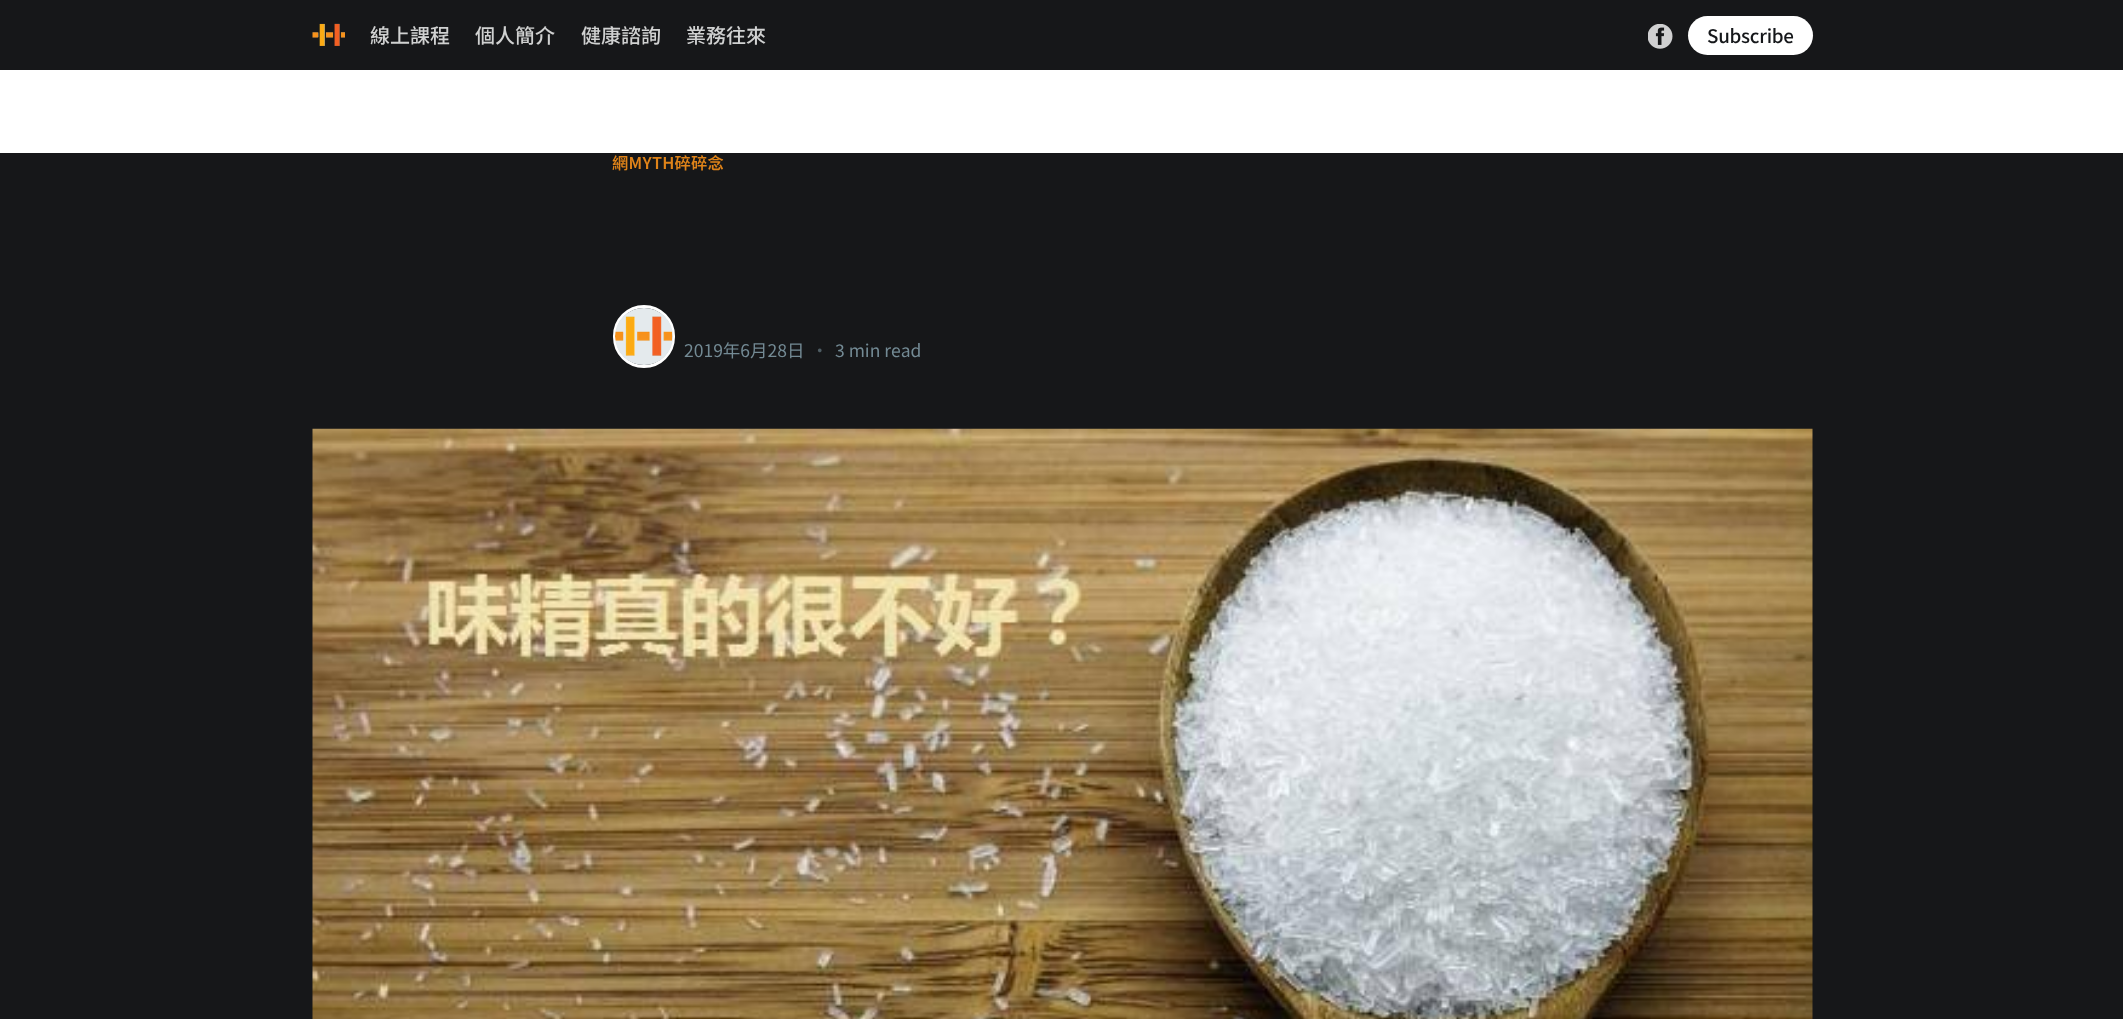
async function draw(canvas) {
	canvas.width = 2123;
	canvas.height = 1019;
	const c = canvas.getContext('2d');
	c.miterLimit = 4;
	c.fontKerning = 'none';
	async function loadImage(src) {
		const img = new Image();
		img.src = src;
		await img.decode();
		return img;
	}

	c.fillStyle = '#fff';
	c.fillRect(0, 0, 2123, 1019);
	c.fillStyle = '#161719';
	c.fillRect(0, 0, 2123, 70);
	c.drawImage(await loadImage('img1.png'), 312, 23, 33, 23);
	c.font = '500 20px Noto Sans TC';
	c.fillStyle = '#d0d1d1';
	for (const [text, x, y] of [
		['線上課程', 370, 43],
		['個人簡介', 475, 43],
		['健康諮詢', 581, 43],
		['業務往來', 686, 43],
	]) {
		c.fillText(text, x, y);
	}
	c.drawImage(await loadImage('img2.png'), 1648, 24, 25, 25);
	c.fillStyle = '#fff';
	c.beginPath();
	c.roundRect(1688, 16, 125, 39, 19.5);
	c.fill();
	c.letterSpacing = '-0.25px';
	c.font = '500 18.75px Noto Sans TC';
	c.fillStyle = '#15171a';
	c.fillText('Subscribe', 1707, 43);
	c.fillStyle = '#161719';
	c.fillRect(0, 153, 2123, 866);
	c.letterSpacing = '0.25px';
	c.font = '600 16.25px Noto Sans TC';
	c.fillStyle = '#df8319';
	c.fillText('網MYTH碎碎念', 612, 169);
	c.beginPath();
	c.roundRect(614.5, 306.5, 59, 60, 29.5);
	c.strokeStyle = '#fff';
	c.lineWidth = 3;
	c.stroke();
	c.fillStyle = '#e4eaed';
	c.beginPath();
	c.roundRect(615, 308, 58, 57, 28.5);
	c.fill();
	c.drawImage(await loadImage('img3.png'), 615, 316, 58, 40);
	c.letterSpacing = '0px';
	c.font = '17.5px Noto Sans TC';
	c.fillStyle = '#738a94';
	c.fillText('2019年6月28日', 684, 357);
	c.fillStyle = '#4e5c63';
	c.fillText('•', 811, 357);
	c.fillStyle = '#738a94';
	c.fillText('3 min read', 835, 357);
	c.drawImage(await loadImage('img4.png'), 312, 428, 1501, 591);
}

draw(document.querySelector('canvas'));
